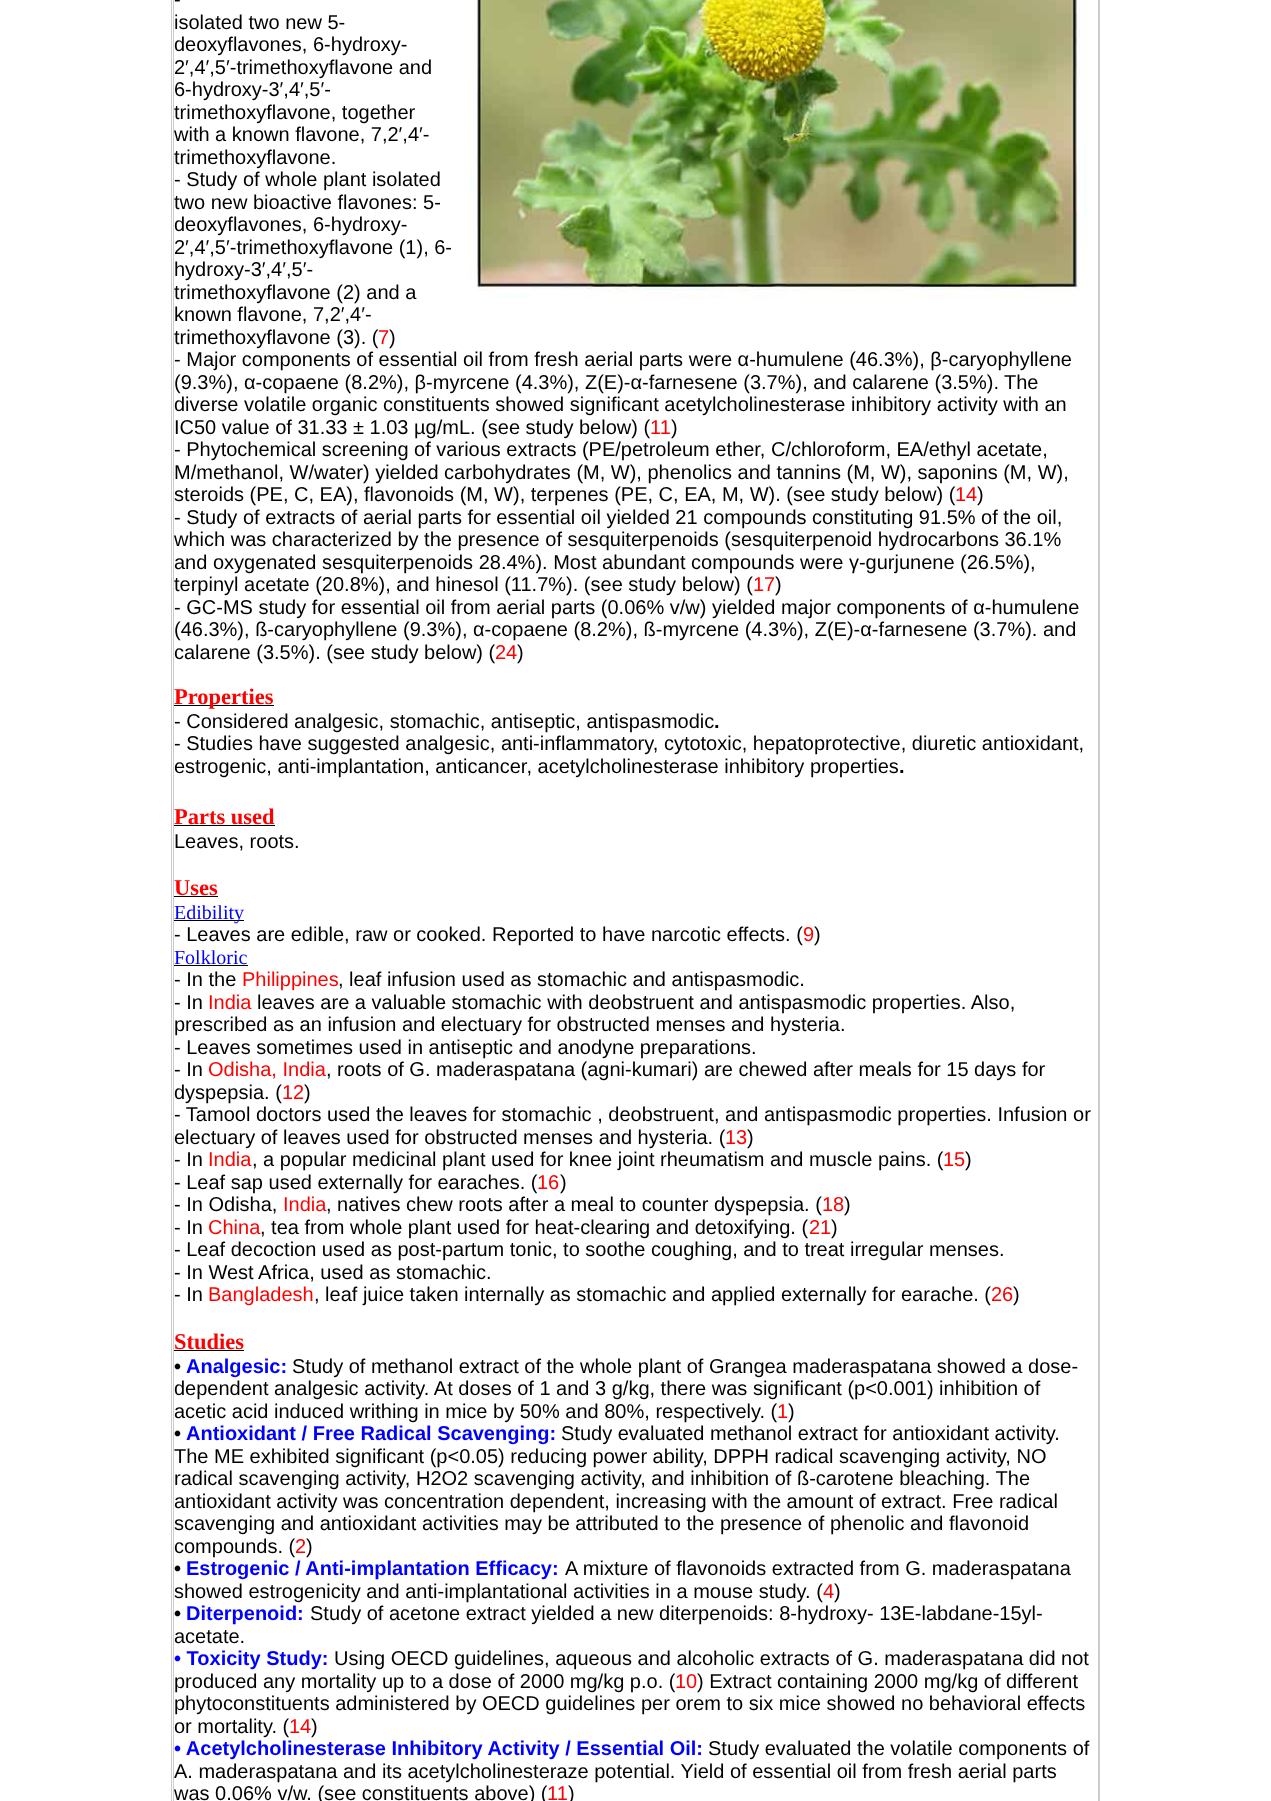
async function draw(canvas) {
	canvas.width = 1271;
	canvas.height = 1801;
	const c = canvas.getContext('2d');
	c.miterLimit = 4;
	c.fontKerning = 'normal';
	async function loadImage(src) {
		const img = new Image();
		img.src = src;
		await img.decode();
		return img;
	}

	c.fillStyle = '#fff';
	c.fillRect(0, 0, 1271, 1801);
	c.strokeStyle = '#ccc';
	c.strokeRect(171.5, -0.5, 928, 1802);
	c.strokeRect(173.5, -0.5, 925, 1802);
	c.font = '20px Liberation Sans';
	c.fillStyle = '#000';
	c.fillText('-', 174, 6);
	c.drawImage(await loadImage('img1.png'), 468, 0, 619, 299);
	for (const [text, x, y] of [
		['isolated two new 5-', 174, 29],
		['deoxyflavones, 6-hydroxy-', 174, 51],
		['2′,4′,5′-trimethoxyflavone and', 174, 74],
		['6-hydroxy-3′,4′,5′-', 174, 96],
		['trimethoxyflavone, together', 174, 119],
		['with a known flavone, 7,2′,4′-', 174, 141],
		['trimethoxyflavone.', 174, 164],
		['- Study of whole plant isolated', 174, 186],
		['two new bioactive flavones: 5-', 174, 209],
		['deoxyflavones, 6-hydroxy-', 174, 231],
		['2′,4′,5′-trimethoxyflavone (1), 6-', 174, 254],
		['hydroxy-3′,4′,5′-', 174, 276],
		['trimethoxyflavone (2) and a', 174, 299],
		['known flavone, 7,2′,4′-', 174, 321],
		['trimethoxyflavone (3). (', 174, 344],
	]) {
		c.fillText(text, x, y);
	}
	c.fillStyle = '#f00';
	c.fillText('7', 378, 344);
	c.fillStyle = '#000';
	for (const [text, x, y] of [
		[')', 389, 344],
		['- Major components of essential oil from fresh aerial parts were α-humulene (46.3%), β-caryophyllene', 174, 366],
		['(9.3%), α-copaene (8.2%), β-myrcene (4.3%), Z(E)-α-farnesene (3.7%), and calarene (3.5%).', 174, 389],
		['The', 1004, 389],
		['diverse volatile organic constituents showed significant acetylcholinesterase inhibitory activity with an', 174, 411],
		['IC50 value of 31.33 ± 1.03 µg/mL. (see study below) (', 174, 434],
	]) {
		c.fillText(text, x, y);
	}
	c.fillStyle = '#f00';
	c.fillText('11', 650, 434);
	c.fillStyle = '#000';
	for (const [text, x, y] of [
		[')', 671, 434],
		['- Phytochemical screening of various extracts (PE/petroleum ether, C/chloroform, EA/ethyl acetate,', 174, 456],
		['M/methanol, W/water) yielded carbohydrates (M, W), phenolics and tannins (M, W), saponins (M, W),', 174, 479],
		['steroids (PE, C, EA), flavonoids (M, W), terpenes (PE, C, EA, M, W). (see study below) (', 174, 501],
	]) {
		c.fillText(text, x, y);
	}
	c.fillStyle = '#f00';
	c.fillText('14', 955, 501);
	c.fillStyle = '#000';
	for (const [text, x, y] of [
		[')', 977, 501],
		['- Study of extracts of aerial parts for essential oil yielded 21 compounds constituting 91.5% of the oil,', 174, 524],
		['which was characterized by the presence of sesquiterpenoids (sesquiterpenoid hydrocarbons 36.1%', 174, 546],
		['and oxygenated sesquiterpenoids 28.4%). Most abundant compounds were γ-gurjunene (26.5%),', 174, 569],
		['terpinyl acetate (20.8%), and hinesol (11.7%). (see study below) (', 174, 591],
	]) {
		c.fillText(text, x, y);
	}
	c.fillStyle = '#f00';
	c.fillText('17', 753, 591);
	c.fillStyle = '#000';
	for (const [text, x, y] of [
		[')', 775, 591],
		['- GC-MS study for essential oil from aerial parts (0.06% v/w) yielded major components of α-humulene', 174, 614],
		['(46.3%), ß-caryophyllene (9.3%), α-copaene (8.2%), ß-myrcene (4.3%), Z(E)-α-farnesene (3.7%). and', 174, 636],
		['calarene (3.5%). (see study below) (', 174, 659],
	]) {
		c.fillText(text, x, y);
	}
	c.fillStyle = '#f00';
	c.fillText('24', 495, 659);
	c.fillStyle = '#000';
	c.fillText(')', 517, 659);
	c.fillRect(174, 705, 100, 1);
	c.font = 'bold 22.5px Liberation Serif';
	c.fillStyle = '#f00';
	c.fillText('Properties', 174, 704);
	c.font = '20px Liberation Sans';
	c.fillStyle = '#000';
	c.fillText('- Considered analgesic, stomachic, antiseptic, antispasmodic', 174, 728);
	c.font = 'bold 20px Liberation Sans';
	c.fillText('.', 714, 728);
	c.font = '20px Liberation Sans';
	c.fillText('- Studies have suggested analgesic, anti-inflammatory, cytotoxic, hepatoprotective, diuretic antioxidant,', 174, 750);
	c.fillText('estrogenic, anti-implantation, anticancer, acetylcholinesterase inhibitory properties', 174, 773);
	c.font = 'bold 20px Liberation Sans';
	c.fillText('.', 899, 773);
	c.font = 'bold 22.5px Liberation Serif';
	c.fillStyle = '#f00';
	c.fillText('Parts used', 174, 824);
	c.fillStyle = '#000';
	c.fillRect(174, 825, 101, 1);
	c.font = '20px Liberation Sans';
	c.fillText('Leaves, roots.', 174, 848);
	c.font = 'bold 22.5px Liberation Serif';
	c.fillStyle = '#f00';
	c.fillText('Uses', 174, 895);
	c.fillStyle = '#000';
	c.fillRect(174, 896, 44, 1);
	c.fillRect(174, 920, 70, 1);
	c.font = '20px Liberation Serif';
	c.fillStyle = '#00f';
	c.fillText('Edibility', 174, 919);
	c.font = '20px Liberation Sans';
	c.fillStyle = '#000';
	c.fillText('- Leaves are edible, raw or cooked. Reported to have narcotic effects. (', 174, 941);
	c.fillStyle = '#f00';
	c.fillText('9', 803, 941);
	c.fillStyle = '#000';
	c.fillText(')', 814, 941);
	c.font = '20px Liberation Serif';
	c.fillStyle = '#00f';
	c.fillText('Folkloric', 174, 964);
	c.fillStyle = '#000';
	c.fillRect(174, 965, 74, 1);
	c.font = '20px Liberation Sans';
	c.fillText('- In the', 174, 986);
	c.fillStyle = '#f00';
	c.fillText('Philippines', 242, 986);
	c.fillStyle = '#000';
	c.fillText(', leaf infusion used as stomachic and antispasmodic.', 338, 986);
	c.fillText('- In', 174, 1009);
	c.fillStyle = '#f00';
	c.fillText('India', 208, 1009);
	c.fillStyle = '#000';
	for (const [text, x, y] of [
		['leaves are a valuable stomachic with deobstruent and antispasmodic properties. Also,', 257, 1009],
		['prescribed as an infusion and electuary for obstructed menses and hysteria.', 174, 1031],
		['- Leaves sometimes used in antiseptic and anodyne preparations.', 174, 1054],
		['- In', 174, 1076],
	]) {
		c.fillText(text, x, y);
	}
	c.fillStyle = '#f00';
	c.fillText('Odisha, India', 208, 1076);
	c.fillStyle = '#000';
	c.fillText(', roots of G. maderaspatana (agni-kumari) are chewed after meals for 15 days for', 326, 1076);
	c.fillText('dyspepsia. (', 174, 1099);
	c.fillStyle = '#f00';
	c.fillText('12', 282, 1099);
	c.fillStyle = '#000';
	for (const [text, x, y] of [
		[')', 304, 1099],
		['- Tamool doctors used the leaves for stomachic , deobstruent, and antispasmodic properties. Infusion or', 174, 1121],
		['electuary of leaves used for obstructed menses and hysteria. (', 174, 1144],
	]) {
		c.fillText(text, x, y);
	}
	c.fillStyle = '#f00';
	c.fillText('13', 725, 1144);
	c.fillStyle = '#000';
	c.fillText(')', 747, 1144);
	c.fillText('- In', 174, 1166);
	c.fillStyle = '#f00';
	c.fillText('India', 208, 1166);
	c.fillStyle = '#000';
	c.fillText(', a popular medicinal plant used for knee joint rheumatism and muscle pains. (', 252, 1166);
	c.fillStyle = '#f00';
	c.fillText('15', 943, 1166);
	c.fillStyle = '#000';
	c.fillText(')', 965, 1166);
	c.fillText('- Leaf sap used externally for earaches. (', 174, 1189);
	c.fillStyle = '#f00';
	c.fillText('16', 537, 1189);
	c.fillStyle = '#000';
	c.fillText(')', 560, 1189);
	c.fillText('- In Odisha,', 174, 1211);
	c.fillStyle = '#f00';
	c.fillText('India', 283, 1211);
	c.fillStyle = '#000';
	c.fillText(', natives chew roots after a meal to counter dyspepsia. (', 326, 1211);
	c.fillStyle = '#f00';
	c.fillText('18', 822, 1211);
	c.fillStyle = '#000';
	c.fillText(')', 844, 1211);
	c.fillText('- In', 174, 1234);
	c.fillStyle = '#f00';
	c.fillText('China', 208, 1234);
	c.fillStyle = '#000';
	c.fillText(', tea from whole plant used for heat-clearing and detoxifying. (', 260, 1234);
	c.fillStyle = '#f00';
	c.fillText('21', 809, 1234);
	c.fillStyle = '#000';
	for (const [text, x, y] of [
		[')', 831, 1234],
		['- Leaf decoction used as post-partum tonic, to soothe coughing, and to treat irregular menses.', 174, 1256],
		['- In West Africa, used as stomachic.', 174, 1279],
		['- In', 174, 1301],
	]) {
		c.fillText(text, x, y);
	}
	c.fillStyle = '#f00';
	c.fillText('Bangladesh', 208, 1301);
	c.fillStyle = '#000';
	c.fillText(', leaf juice taken internally as stomachic and applied externally for earache. (', 314, 1301);
	c.fillStyle = '#f00';
	c.fillText('26', 991, 1301);
	c.fillStyle = '#000';
	c.fillText(')', 1013, 1301);
	c.font = 'bold 22.5px Liberation Serif';
	c.fillStyle = '#f00';
	c.fillText('Studies', 174, 1349);
	c.fillStyle = '#000';
	c.fillRect(174, 1350, 70, 1);
	c.font = 'bold 20px Liberation Sans';
	c.fillText('•', 174, 1373);
	c.fillStyle = '#00f';
	c.fillText('Analgesic:', 186, 1373);
	c.font = '20px Liberation Sans';
	c.fillStyle = '#000';
	for (const [text, x, y] of [
		['Study of methanol extract of the whole plant of Grangea maderaspatana showed a dose-', 292, 1373],
		['dependent analgesic activity. At doses of 1 and 3 g/kg, there was significant (p<0.001) inhibition of', 174, 1395],
		['acetic acid induced writhing in mice by 50% and 80%, respectively. (', 174, 1418],
	]) {
		c.fillText(text, x, y);
	}
	c.fillStyle = '#f00';
	c.fillText('1', 777, 1418);
	c.fillStyle = '#000';
	c.fillText(')', 788, 1418);
	c.font = 'bold 20px Liberation Sans';
	c.fillText('•', 174, 1440);
	c.fillStyle = '#00f';
	c.fillText('Antioxidant / Free Radical Scavenging:', 186, 1440);
	c.font = '20px Liberation Sans';
	c.fillStyle = '#000';
	for (const [text, x, y] of [
		['Study evaluated methanol extract for antioxidant activity.', 561, 1440],
		['The ME exhibited significant (p<0.05) reducing power ability, DPPH radical scavenging activity, NO', 174, 1463],
		['radical scavenging activity, H2O2 scavenging activity, and inhibition of ß-carotene bleaching. The', 174, 1485],
		['antioxidant activity was concentration dependent, increasing with the amount of extract. Free radical', 174, 1508],
		['scavenging and antioxidant activities may be attributed to the presence of phenolic and flavonoid', 174, 1530],
		['compounds. (', 174, 1553],
	]) {
		c.fillText(text, x, y);
	}
	c.fillStyle = '#f00';
	c.fillText('2', 295, 1553);
	c.fillStyle = '#000';
	c.fillText(')', 306, 1553);
	c.font = 'bold 20px Liberation Sans';
	c.fillText('•', 174, 1575);
	c.fillStyle = '#00f';
	c.fillText('Estrogenic / Anti-implantation Efficacy:', 186, 1575);
	c.font = '20px Liberation Sans';
	c.fillStyle = '#000';
	c.fillText('A mixture of flavonoids extracted from G. maderaspatana', 565, 1575);
	c.fillText('showed estrogenicity and anti-implantational activities in a mouse study. (', 174, 1598);
	c.fillStyle = '#f00';
	c.fillText('4', 823, 1598);
	c.fillStyle = '#000';
	c.fillText(')', 834, 1598);
	c.font = 'bold 20px Liberation Sans';
	c.fillText('•', 174, 1620);
	c.fillStyle = '#00f';
	c.fillText('Diterpenoid:', 186, 1620);
	c.font = '20px Liberation Sans';
	c.fillStyle = '#000';
	c.fillText('Study of acetone extract yielded a new diterpenoids: 8-hydroxy- 13E-labdane-15yl-', 310, 1620);
	c.fillText('acetate.', 174, 1643);
	c.font = 'bold 20px Liberation Sans';
	c.fillStyle = '#00f';
	c.fillText('• Toxicity Study:', 174, 1665);
	c.font = '20px Liberation Sans';
	c.fillStyle = '#000';
	c.fillText('Using OECD guidelines, aqueous and alcoholic extracts of G. maderaspatana did not', 334, 1665);
	c.fillText('produced any mortality up to a dose of 2000 mg/kg p.o. (', 174, 1688);
	c.fillStyle = '#f00';
	c.fillText('10', 675, 1688);
	c.fillStyle = '#000';
	for (const [text, x, y] of [
		[') Extract containing 2000 mg/kg of different', 697, 1688],
		['phytoconstituents administered by OECD guidelines per orem to six mice showed no behavioral effects', 174, 1710],
		['or mortality. (', 174, 1733],
	]) {
		c.fillText(text, x, y);
	}
	c.fillStyle = '#f00';
	c.fillText('14', 289, 1733);
	c.fillStyle = '#000';
	c.fillText(')', 311, 1733);
	c.font = 'bold 20px Liberation Sans';
	c.fillStyle = '#00f';
	c.fillText('• Acetylcholinesterase Inhibitory Activity / Essential Oil:', 174, 1755);
	c.font = '20px Liberation Sans';
	c.fillStyle = '#000';
	for (const [text, x, y] of [
		['Study evaluated the volatile components of', 708, 1755],
		['A. maderaspatana and its acetylcholinesteraze potential. Yield of essential oil from fresh aerial parts', 174, 1778],
		['was 0.06% v/w. (see constituents above) (', 174, 1800],
	]) {
		c.fillText(text, x, y);
	}
	c.fillStyle = '#f00';
	c.fillText('11', 547, 1800);
	c.fillStyle = '#000';
	c.fillText(')', 568, 1800);
}

draw(document.querySelector('canvas'));
